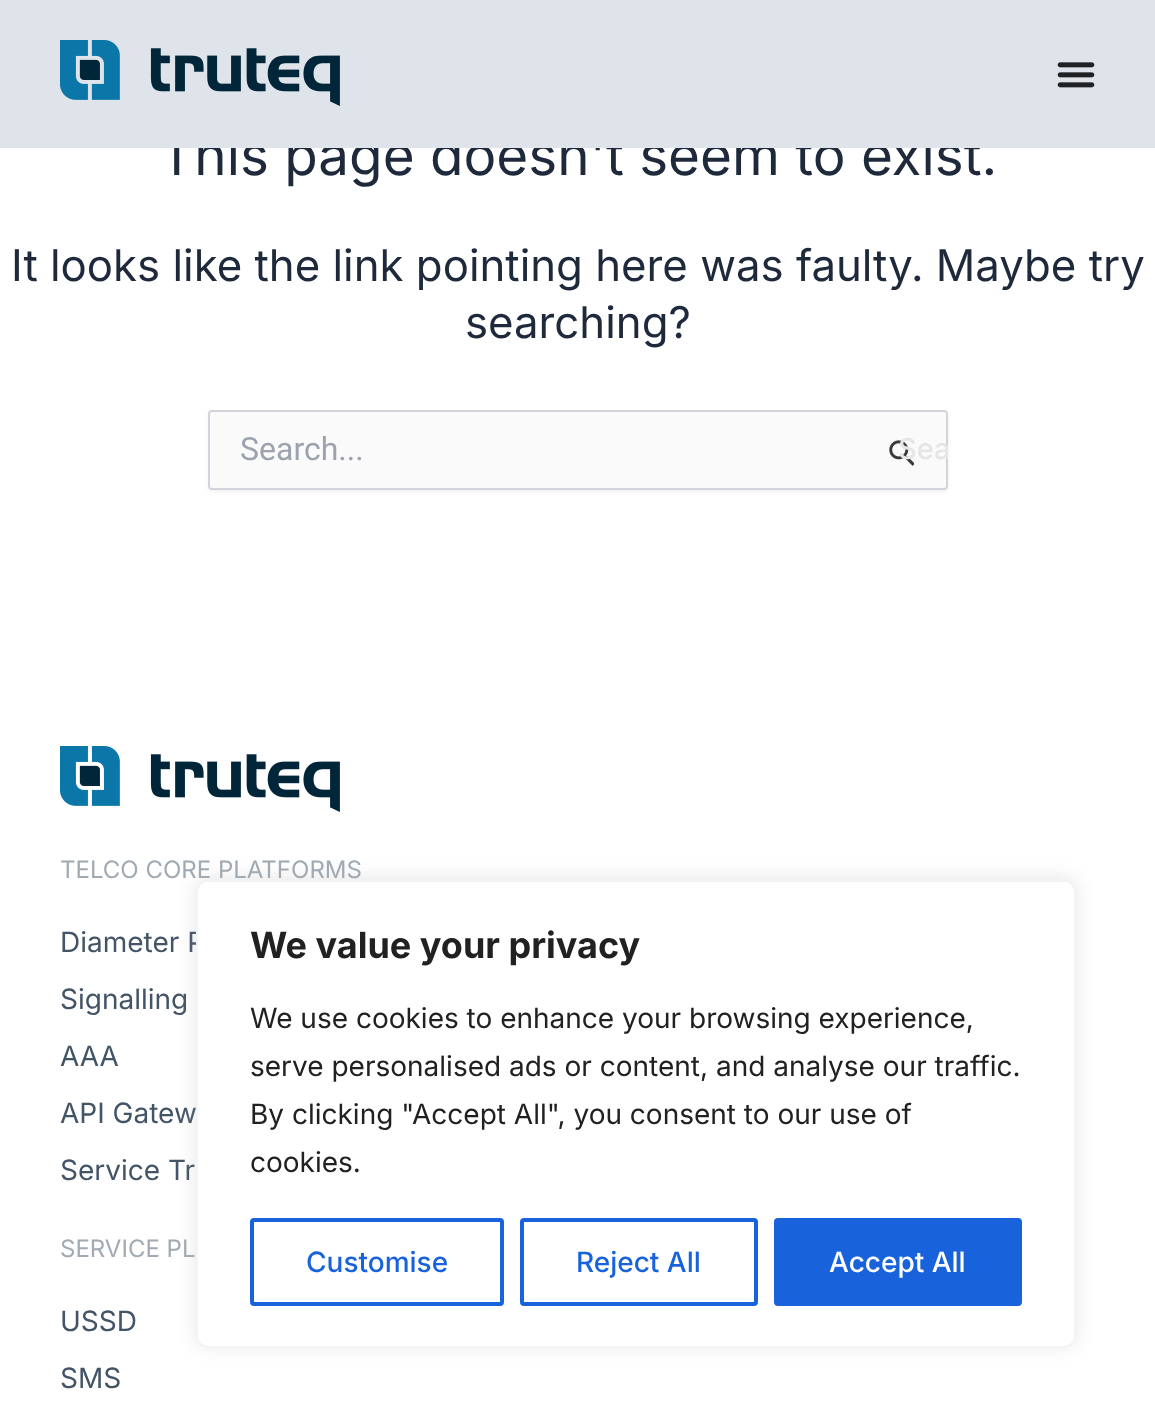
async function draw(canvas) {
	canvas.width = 1155;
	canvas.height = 1427;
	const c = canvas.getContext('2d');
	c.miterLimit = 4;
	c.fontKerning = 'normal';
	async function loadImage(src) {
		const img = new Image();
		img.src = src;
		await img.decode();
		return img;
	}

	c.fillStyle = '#fff';
	c.fillRect(0, 0, 1155, 1427);
	c.font = '54.75px Inter';
	c.fillStyle = '#1e293b';
	c.fillText('This page doesn\'t seem to exist.', 159, 175);
	c.fillStyle = '#dfe3ea';
	c.fillRect(0, 0, 1155, 148);
	c.drawImage(await loadImage('img1.png'), 60, 40, 280, 66);
	c.drawImage(await loadImage('img2.png'), 1057, 62, 38, 26);
	c.font = '43.75px Inter';
	c.fillStyle = '#1e293b';
	c.fillText('It looks like the link pointing here was faulty. Maybe try', 11, 281);
	c.fillText('searching?', 465, 338);
	c.fillStyle = '#0000000d';
	c.filter = 'blur(2px)';
	c.beginPath();
	c.roundRect(208, 412, 740, 80, 4);
	c.fill();
	c.filter = 'none';
	c.fillStyle = '#fafafa';
	c.beginPath();
	c.roundRect(209, 411, 738, 78, 3);
	c.fill();
	c.strokeStyle = '#d1d5db';
	c.lineWidth = 2;
	c.stroke();
	c.font = '32px Roboto';
	c.fillStyle = '#9ca3af';
	c.fillText('Search...', 240, 460);
	c.drawImage(await loadImage('img3.png'), 889, 440, 25, 26);
	c.save();
	c.beginPath();
	c.roundRect(858, 410, 90, 80, 4);
	c.clip();
	c.font = '500 29px Inter';
	c.fillStyle = '#e5e5e5';
	c.fillText('Sea', 898, 459);
	c.restore();
	c.drawImage(await loadImage('img4.png'), 60, 746, 280, 66);
	c.font = '24px Inter';
	c.fillStyle = '#a1aab3';
	c.fillText('TELCO CORE PLATFORMS', 60, 878);
	c.font = '28px Inter';
	c.fillStyle = '#425466';
	for (const [text, x, y] of [
		['Diameter P', 60, 952],
		['Signalling', 60, 1009],
		['AAA', 60, 1066],
		['API Gatew', 60, 1123],
		['Service Tr', 60, 1180],
	]) {
		c.fillText(text, x, y);
	}
	c.font = '24px Inter';
	c.fillStyle = '#a1aab3';
	c.fillText('SERVICE PL', 60, 1257);
	c.font = '28px Inter';
	c.fillStyle = '#425466';
	c.fillText('USSD', 60, 1331);
	c.fillText('SMS', 60, 1388);
	c.fillStyle = '#acabab4d';
	c.filter = 'blur(10px)';
	c.beginPath();
	c.roundRect(196, 878, 880, 468, 12);
	c.fill();
	c.filter = 'none';
	c.fillStyle = '#fff';
	c.beginPath();
	c.roundRect(197, 881, 878, 466, 11);
	c.fill();
	c.strokeStyle = '#f4f4f4';
	c.stroke();
	c.font = 'bold 36px Inter';
	c.fillStyle = '#212121';
	c.fillText('We value your privacy', 250, 958);
	c.font = '28px Inter';
	for (const [text, x, y] of [
		['We use cookies to enhance your browsing experience,', 250, 1028],
		['serve personalised ads or content, and analyse our traffic.', 250, 1076],
		['By clicking "Accept All", you consent to our use of', 250, 1124],
		['cookies.', 250, 1172],
	]) {
		c.fillText(text, x, y);
	}
	c.beginPath();
	c.roundRect(252, 1220, 250, 84, 2);
	c.strokeStyle = '#1863dc';
	c.lineWidth = 4;
	c.stroke();
	c.font = '500 28px Inter';
	c.fillStyle = '#1863dc';
	c.fillText('Customise', 306, 1272);
	c.beginPath();
	c.roundRect(522, 1220, 234, 84, 2);
	c.stroke();
	c.fillText('Reject All', 576, 1272);
	c.beginPath();
	c.roundRect(776, 1220, 244, 84, 2);
	c.fill();
	c.stroke();
	c.fillStyle = '#fff';
	c.fillText('Accept All', 829, 1272);
}

draw(document.querySelector('canvas'));
